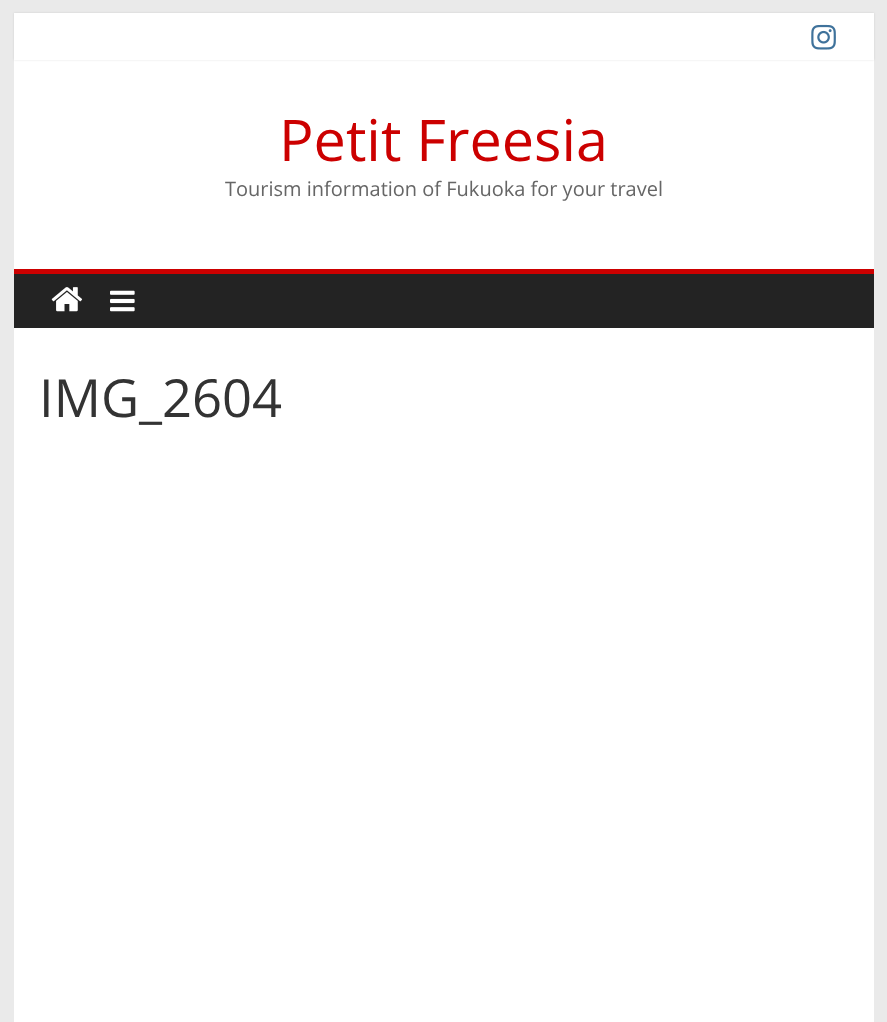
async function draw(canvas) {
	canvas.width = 887;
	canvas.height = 1022;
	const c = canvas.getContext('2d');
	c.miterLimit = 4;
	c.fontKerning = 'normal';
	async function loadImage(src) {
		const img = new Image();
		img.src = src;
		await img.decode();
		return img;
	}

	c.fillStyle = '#eaeaea';
	c.fillRect(0, 0, 887, 1022);
	c.fillStyle = '#fff';
	c.fillRect(14, 60, 860, 209);
	c.fillStyle = '#0000001a';
	c.filter = 'blur(1px)';
	c.beginPath();
	c.rect(14, 13, 860, 47);
	c.fill();
	c.filter = 'none';
	c.fillStyle = '#fff';
	c.fillRect(14, 13, 860, 47);
	c.drawImage(await loadImage('img1.png'), 811, 24, 25, 26);
	c.font = '57.5px Open Sans';
	c.fillStyle = '#c00';
	c.fillText('Petit Freesia', 279, 161);
	c.font = '20px Open Sans';
	c.fillStyle = '#666';
	c.fillText('Tourism information of Fukuoka for your travel', 225, 196);
	c.fillStyle = '#232323';
	c.fillRect(14, 274, 860, 54);
	c.fillStyle = '#c00';
	c.fillRect(14, 269, 860, 5);
	c.drawImage(await loadImage('img2.png'), 51, 287, 32, 25);
	c.drawImage(await loadImage('img3.png'), 110, 290, 25, 22);
	c.fillStyle = '#fff';
	c.fillRect(14, 328, 860, 694);
	c.font = '52.5px Open Sans';
	c.fillStyle = '#333';
	c.fillText('IMG_2604', 39, 417);
}

draw(document.querySelector('canvas'));
